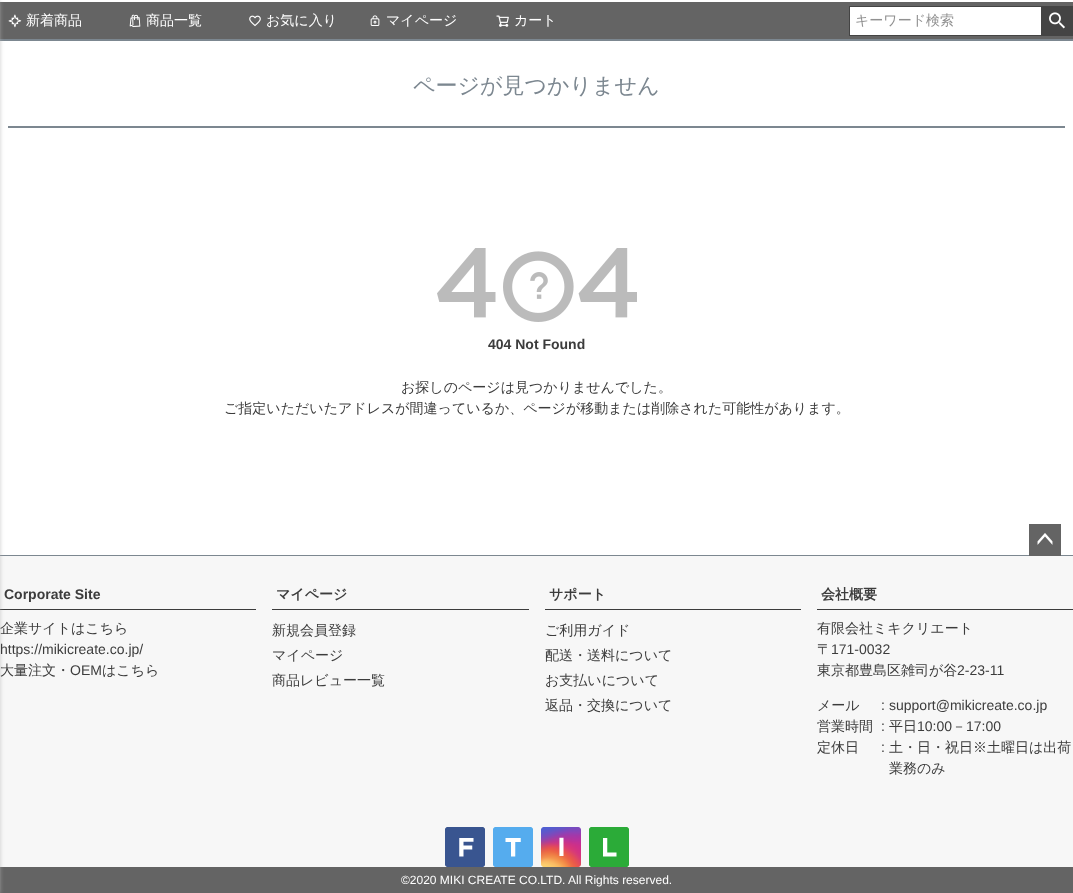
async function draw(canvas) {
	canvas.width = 1073;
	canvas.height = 893;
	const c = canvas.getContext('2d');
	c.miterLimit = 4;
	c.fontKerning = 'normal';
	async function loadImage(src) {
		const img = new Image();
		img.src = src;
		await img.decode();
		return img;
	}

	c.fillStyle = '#fff';
	c.fillRect(0, 0, 1073, 893);
	c.fillStyle = '#646464';
	c.fillRect(0, 2, 1073, 37);
	c.fillStyle = '#7c8790';
	c.fillRect(0, 39, 1073, 2);
	c.drawImage(await loadImage('img1.png'), 8, 14, 14, 14);
	c.font = '500 14px WenQuanYi Zen Hei';
	c.fillStyle = '#fff';
	c.fillText('新着商品', 26, 25);
	c.drawImage(await loadImage('img2.png'), 129, 14, 12, 14);
	c.fillText('商品一覧', 146, 25);
	c.drawImage(await loadImage('img3.png'), 249, 15, 12, 12);
	c.fillText('お気に入り', 266, 25);
	c.drawImage(await loadImage('img4.png'), 370, 15, 10, 11);
	c.fillText('マイページ', 386, 25);
	c.drawImage(await loadImage('img5.png'), 496, 15, 13, 12);
	c.fillText('カート', 514, 25);
	c.fillStyle = '#444';
	c.fillRect(849, 6, 224, 30);
	c.fillStyle = '#fff';
	c.fillRect(850, 7, 191, 28);
	c.fillStyle = '#919191';
	c.fillText('キーワード検索', 855, 25);
	c.drawImage(await loadImage('img6.png'), 1049, 12, 16, 17);
	for (const [x, y, w, h, color] of [
		[0, 556, 1073, 311, '#f7f7f7'],
		[0, 555, 1073, 1, '#7c8790'],
		[0, 609, 256, 1, '#3c3c3c'],
		[0, 867, 1073, 26, '#646464'],
	]) {
		c.fillStyle = color;
		c.fillRect(x, y, w, h);
	}
	c.fillStyle = '#b2b2b2';
	c.filter = 'blur(2.5px)';
	c.beginPath();
	c.rect(-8, 1, 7, 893);
	c.fill();
	c.filter = 'none';
	c.fillStyle = '#7c8790';
	c.fillRect(8, 126, 1057, 2);
	c.font = '500 22px WenQuanYi Zen Hei';
	c.fillText('ページが見つかりません', 413, 93);
	c.drawImage(await loadImage('img7.png'), 437, 248, 200, 74);
	c.font = 'bold 14px Liberation Sans';
	c.fillStyle = '#3c3c3c';
	c.fillText('404 Not Found', 488, 349);
	c.font = '500 14px WenQuanYi Zen Hei';
	c.fillText('お探しのページは見つかりませんでした。', 401, 392);
	c.fillText('ご指定いただいたアドレスが間違っているか、ページが移動または削除された可能性があります。', 224, 413);
	c.fillStyle = '#646464';
	c.fillRect(1029, 524, 32, 32);
	c.drawImage(await loadImage('img8.png'), 1037, 533, 16, 12);
	c.font = 'bold 14px Liberation Sans';
	c.fillStyle = '#3c3c3c';
	c.fillText('Corporate Site', 4, 599);
	c.font = '500 14px WenQuanYi Zen Hei';
	c.fillText('企業サイトはこちら', 0, 633);
	c.font = '14px Liberation Sans';
	c.fillText('https://mikicreate.co.jp/', 0, 654);
	c.font = '500 14px WenQuanYi Zen Hei';
	c.fillText('大量注文・', 0, 675);
	c.font = '14px Liberation Sans';
	c.fillText('OEM', 70, 675);
	c.font = '500 14px WenQuanYi Zen Hei';
	c.fillText('はこちら', 102, 675);
	c.fillRect(272, 609, 257, 1);
	c.font = 'bold 14px WenQuanYi Zen Hei';
	c.fillText('マイページ', 276, 599);
	c.font = '500 14px WenQuanYi Zen Hei';
	for (const [text, x, y] of [
		['新規会員登録', 272, 635],
		['マイページ', 272, 660],
		['商品レビュー一覧', 272, 685],
	]) {
		c.fillText(text, x, y);
	}
	c.fillRect(545, 609, 256, 1);
	c.font = 'bold 14px WenQuanYi Zen Hei';
	c.fillText('サポート', 549, 599);
	c.font = '500 14px WenQuanYi Zen Hei';
	for (const [text, x, y] of [
		['ご利用ガイド', 545, 635],
		['配送・送料について', 545, 660],
		['お支払いについて', 545, 685],
		['返品・交換について', 545, 710],
	]) {
		c.fillText(text, x, y);
	}
	c.fillRect(817, 609, 256, 1);
	c.font = 'bold 14px WenQuanYi Zen Hei';
	c.fillText('会社概要', 821, 599);
	c.font = '500 14px WenQuanYi Zen Hei';
	c.fillText('有限会社ミキクリエート', 817, 633);
	c.fillText('〒', 817, 654);
	c.font = '14px Liberation Sans';
	c.fillText('171-0032', 831, 654);
	c.font = '500 14px WenQuanYi Zen Hei';
	c.fillText('東京都豊島区雑司が谷', 817, 675);
	c.font = '14px Liberation Sans';
	c.fillText('2-23-11', 957, 675);
	c.font = '500 14px WenQuanYi Zen Hei';
	c.fillText('メール', 817, 710);
	c.font = '14px Liberation Sans';
	c.fillText(':', 881, 710);
	c.fillText('support@mikicreate.co.jp', 889, 710);
	c.font = '500 14px WenQuanYi Zen Hei';
	c.fillText('営業時間', 817, 731);
	c.font = '14px Liberation Sans';
	c.fillText(':', 881, 731);
	c.font = '500 14px WenQuanYi Zen Hei';
	c.fillText('平日', 889, 731);
	c.font = '14px Liberation Sans';
	c.fillText('10:00', 917, 731);
	c.font = '500 14px WenQuanYi Zen Hei';
	c.fillText('－', 952, 731);
	c.font = '14px Liberation Sans';
	c.fillText('17:00', 966, 731);
	c.font = '500 14px WenQuanYi Zen Hei';
	c.fillText('定休日', 817, 752);
	c.font = '14px Liberation Sans';
	c.fillText(':', 881, 752);
	c.font = '500 14px WenQuanYi Zen Hei';
	c.fillText('土・日・祝日※土曜日は出荷', 889, 752);
	c.fillText('業務のみ', 889, 773);
	c.drawImage(await loadImage('img9.png'), 445, 827, 40, 40);
	c.drawImage(await loadImage('img10.png'), 493, 827, 40, 40);
	c.drawImage(await loadImage('img11.png'), 541, 827, 40, 40);
	c.drawImage(await loadImage('img12.png'), 589, 827, 40, 40);
	c.font = '12px Liberation Sans';
	c.fillStyle = '#fff';
	c.fillText('©2020 MIKI CREATE CO.LTD. All Rights reserved.', 401, 884);
}

draw(document.querySelector('canvas'));
